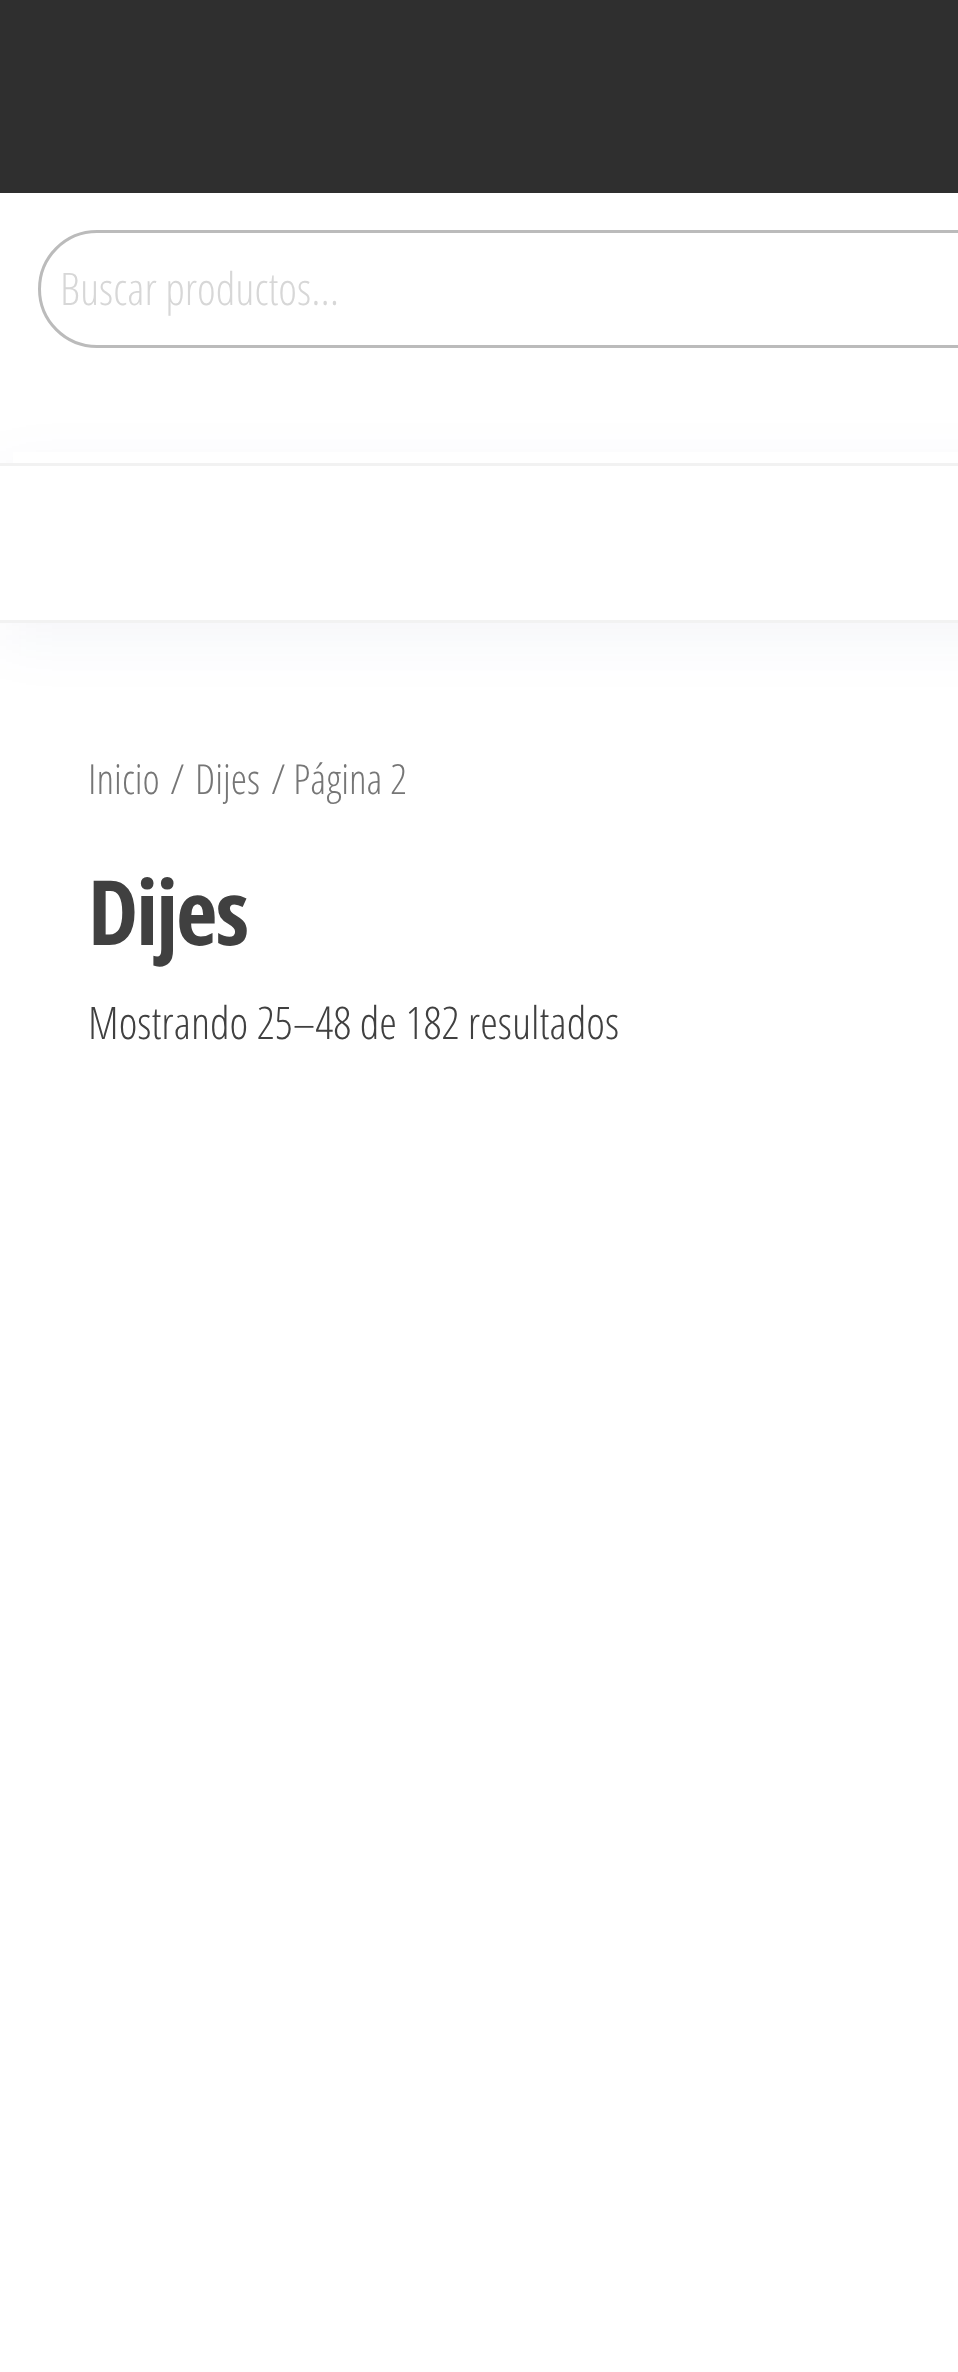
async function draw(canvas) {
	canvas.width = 958;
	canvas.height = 2372;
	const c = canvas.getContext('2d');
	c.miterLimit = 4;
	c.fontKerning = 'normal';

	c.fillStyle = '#fff';
	c.fillRect(0, 0, 958, 2372);
	c.fillStyle = '#2f2f2f';
	c.fillRect(0, 0, 958, 193);
	c.fillStyle = '#1c2d710d';
	c.filter = 'blur(31px)';
	c.beginPath();
	c.rect(0, 475, 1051, 160);
	c.fill();
	c.filter = 'none';
	c.fillStyle = '#fff';
	c.fillRect(13, 452, 945, 11);
	c.beginPath();
	c.roundRect(39.5, 231.5, 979, 115, 57.5);
	c.strokeStyle = '#bbb';
	c.lineWidth = 3;
	c.stroke();
	c.font = '300 45px Open Sans Condensed';
	c.fillStyle = '#d7d7d7';
	c.fillText('Buscar productos…', 60, 305);
	for (const [x, y, w, h, color] of [
		[0, 466, 958, 154, '#fff'],
		[0, 463, 958, 3, '#f2f2f2'],
		[0, 620, 958, 3, '#f2f2f2'],
	]) {
		c.fillStyle = color;
		c.fillRect(x, y, w, h);
	}
	c.font = '300 41.5px Open Sans Condensed';
	c.fillStyle = '#767676';
	for (const [text, x, y] of [
		['Inicio', 88, 794],
		['/', 170, 794],
		['Dijes', 195, 794],
		['/ Página 2', 271, 794],
	]) {
		c.fillText(text, x, y);
	}
	c.letterSpacing = '-2px';
	c.font = 'bold 90px Open Sans Condensed';
	c.fillStyle = '#404040';
	c.fillText('Dijes', 88, 945);
	c.letterSpacing = '0px';
	c.font = '300 45px Open Sans Condensed';
	c.fillText('Mostrando 25–48 de 182 resultados', 88, 1039);
}

draw(document.querySelector('canvas'));
